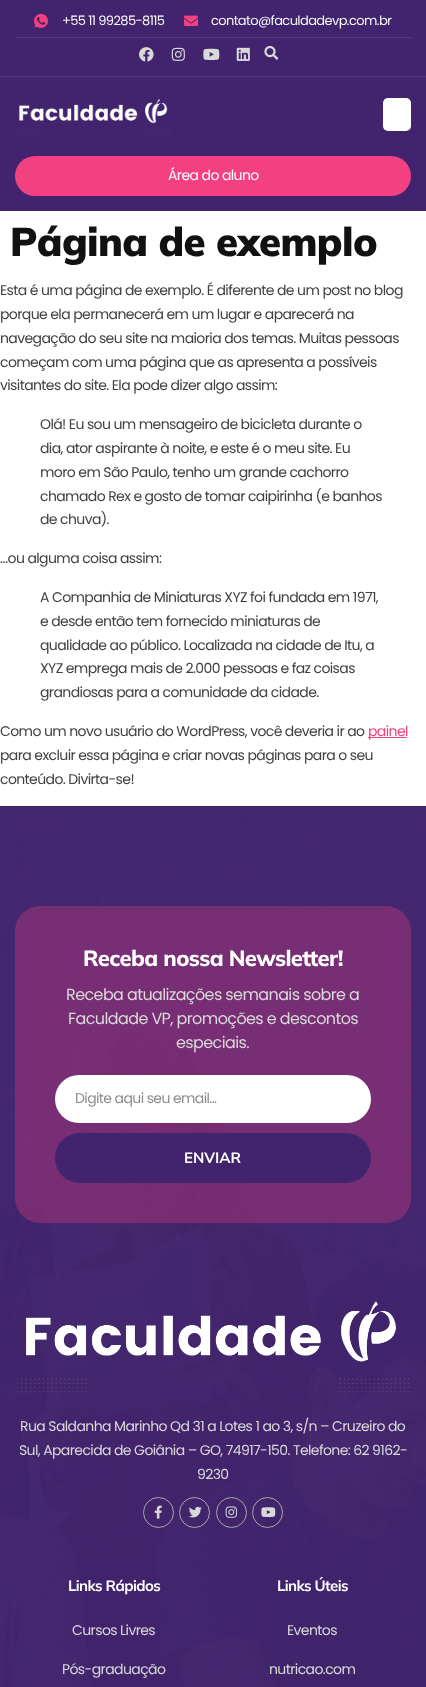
async function draw(canvas) {
	canvas.width = 426;
	canvas.height = 1687;
	const c = canvas.getContext('2d');
	c.miterLimit = 4;
	c.fontKerning = 'normal';
	async function loadImage(src) {
		const img = new Image();
		img.src = src;
		await img.decode();
		return img;
	}

	c.fillStyle = '#fff';
	c.fillRect(0, 0, 426, 1687);
	for (const [x, y, w, h, color] of [
		[0, 0, 426, 76, '#41246d'],
		[0, 76, 426, 1, '#553b7c'],
		[15, 37, 396, 1, '#553b7c'],
	]) {
		c.fillStyle = color;
		c.fillRect(x, y, w, h);
	}
	c.drawImage(await loadImage('img1.png'), 34, 13, 14, 15);
	c.letterSpacing = '-0.6px';
	c.font = '13px Poppins';
	c.fillStyle = '#f8f8f8';
	c.fillText('+55 11 99285-8115', 62, 25);
	c.drawImage(await loadImage('img2.png'), 184, 15, 14, 11);
	c.fillText('contato@faculdadevp.com.br', 211, 25);
	c.drawImage(await loadImage('img3.png'), 139, 47, 15, 15);
	c.drawImage(await loadImage('img4.png'), 171, 47, 14, 14);
	c.drawImage(await loadImage('img5.png'), 203, 48, 17, 12);
	c.drawImage(await loadImage('img6.png'), 236, 47, 14, 14);
	c.drawImage(await loadImage('img7.png'), 264, 46, 15, 14);
	c.fillStyle = '#41246d';
	c.fillRect(0, 77, 426, 134);
	c.drawImage(await loadImage('img8.png'), 16, 99, 156, 36);
	c.fillStyle = '#fff';
	c.beginPath();
	c.roundRect(383, 98, 28, 33, 5);
	c.fill();
	c.fillStyle = '#f24080';
	c.beginPath();
	c.roundRect(15, 156, 396, 40, 20);
	c.fill();
	c.font = '14px Poppins';
	c.fillStyle = '#fff';
	c.fillText('Área do aluno', 168, 180);
	c.font = '900 40px Mulish';
	c.fillStyle = '#111';
	c.fillText('Página de exemplo', 10, 256);
	c.font = '14px Poppins';
	c.fillStyle = '#414141';
	for (const [text, x, y] of [
		['Esta é uma página de exemplo. É diferente de um post no blog', 0, 295],
		['porque ela permanecerá em um lugar e aparecerá na', 0, 319],
		['navegação do seu site na maioria dos temas. Muitas pessoas', 0, 343],
		['começam com uma página que as apresenta a possíveis', 0, 367],
		['visitantes do site. Ela pode dizer algo assim:', 0, 390],
		['Olá! Eu sou um mensageiro de bicicleta durante o', 40, 429],
		['dia, ator aspirante à noite, e este é o meu site. Eu', 40, 453],
		['moro em São Paulo, tenho um grande cachorro', 40, 477],
		['chamado Rex e gosto de tomar caipirinha (e banhos', 40, 501],
		['de chuva).', 40, 524],
		['…ou alguma coisa assim:', 0, 563],
		['A Companhia de Miniaturas XYZ foi fundada em 1971,', 40, 602],
		['e desde então tem fornecido miniaturas de', 40, 626],
		['qualidade ao público. Localizada na cidade de Itu, a', 40, 650],
		['XYZ emprega mais de 2.000 pessoas e faz coisas', 40, 673],
		['grandiosas para a comunidade da cidade.', 40, 697],
		['Como um novo usuário do WordPress, você deveria ir ao', 0, 736],
	]) {
		c.fillText(text, x, y);
	}
	c.fillStyle = '#f24080';
	c.fillRect(368, 737, 39, 1);
	c.fillText('painel', 368, 736);
	c.fillStyle = '#414141';
	c.fillText('para excluir essa página e criar novas páginas para o seu', 0, 760);
	c.fillText('conteúdo. Divirta-se!', 0, 784);
	c.drawImage(await loadImage('img9.png'), 0, 806, 426, 881);
	c.fillStyle = '#f240804d';
	c.beginPath();
	c.roundRect(15, 906, 396, 317, 25);
	c.fill();
	c.font = '800 22px Mulish';
	c.fillStyle = '#fff';
	c.fillText('Receba nossa Newsletter!', 83, 966);
	c.font = '16px Poppins';
	c.fillStyle = '#d9d9d9';
	for (const [text, x, y] of [
		['Receba atualizações semanais sobre a', 66, 1000],
		['Faculdade VP, promoções e descontos', 68, 1024],
		['especiais.', 176, 1048],
	]) {
		c.fillText(text, x, y);
	}
	c.fillStyle = '#fff';
	c.beginPath();
	c.roundRect(55, 1075, 316, 48, 24);
	c.fill();
	c.font = '14px Poppins';
	c.fillStyle = '#8d8d8d';
	c.fillText('Digite aqui seu email...', 75, 1103);
	c.fillStyle = '#41246d';
	c.beginPath();
	c.roundRect(55, 1133, 316, 50, 25);
	c.fill();
	c.letterSpacing = '0px';
	c.font = 'bold 15px Mulish';
	c.fillStyle = '#fff';
	c.fillText('ENVIAR', 184, 1163);
	c.drawImage(await loadImage('img10.png'), 16, 1301, 394, 92);
	c.letterSpacing = '-0.6px';
	c.font = '14px Poppins';
	c.fillStyle = '#d9d9d9';
	for (const [text, x, y] of [
		['Rua Saldanha Marinho Qd 31 a Lotes 1 ao 3, s/n – Cruzeiro do', 20, 1431],
		['Sul, Aparecida de Goiânia – GO, 74917-150. Telefone: 62 9162-', 19, 1455],
		['9230', 197, 1479],
	]) {
		c.fillText(text, x, y);
	}
	c.beginPath();
	c.arc(158.5, 1512.5, 15, 0, 2 * Math.PI);
	c.strokeStyle = '#a7a7a7';
	c.stroke();
	c.drawImage(await loadImage('img11.png'), 154, 1505, 8, 14);
	c.beginPath();
	c.arc(194.5, 1512.5, 15, 0, 2 * Math.PI);
	c.stroke();
	c.drawImage(await loadImage('img12.png'), 189, 1506, 13, 12);
	c.beginPath();
	c.arc(231.5, 1512.5, 15, 0, 2 * Math.PI);
	c.stroke();
	c.drawImage(await loadImage('img13.png'), 225, 1506, 12, 12);
	c.beginPath();
	c.arc(267.5, 1512.5, 15, 0, 2 * Math.PI);
	c.stroke();
	c.drawImage(await loadImage('img14.png'), 261, 1507, 15, 10);
	c.font = 'bold 15px Mulish';
	c.fillStyle = '#fff';
	c.fillText('Links Rápidos', 68, 1591);
	c.font = '14px Poppins';
	c.fillStyle = '#d9d9d9';
	c.fillText('Cursos Livres', 72, 1635);
	c.fillText('Pós-graduação', 62, 1674);
	c.font = 'bold 15px Mulish';
	c.fillStyle = '#fff';
	c.fillText('Links Úteis', 277, 1591);
	c.font = '14px Poppins';
	c.fillStyle = '#d9d9d9';
	c.fillText('Eventos', 287, 1635);
	c.fillText('nutricao.com', 269, 1674);
}

draw(document.querySelector('canvas'));
